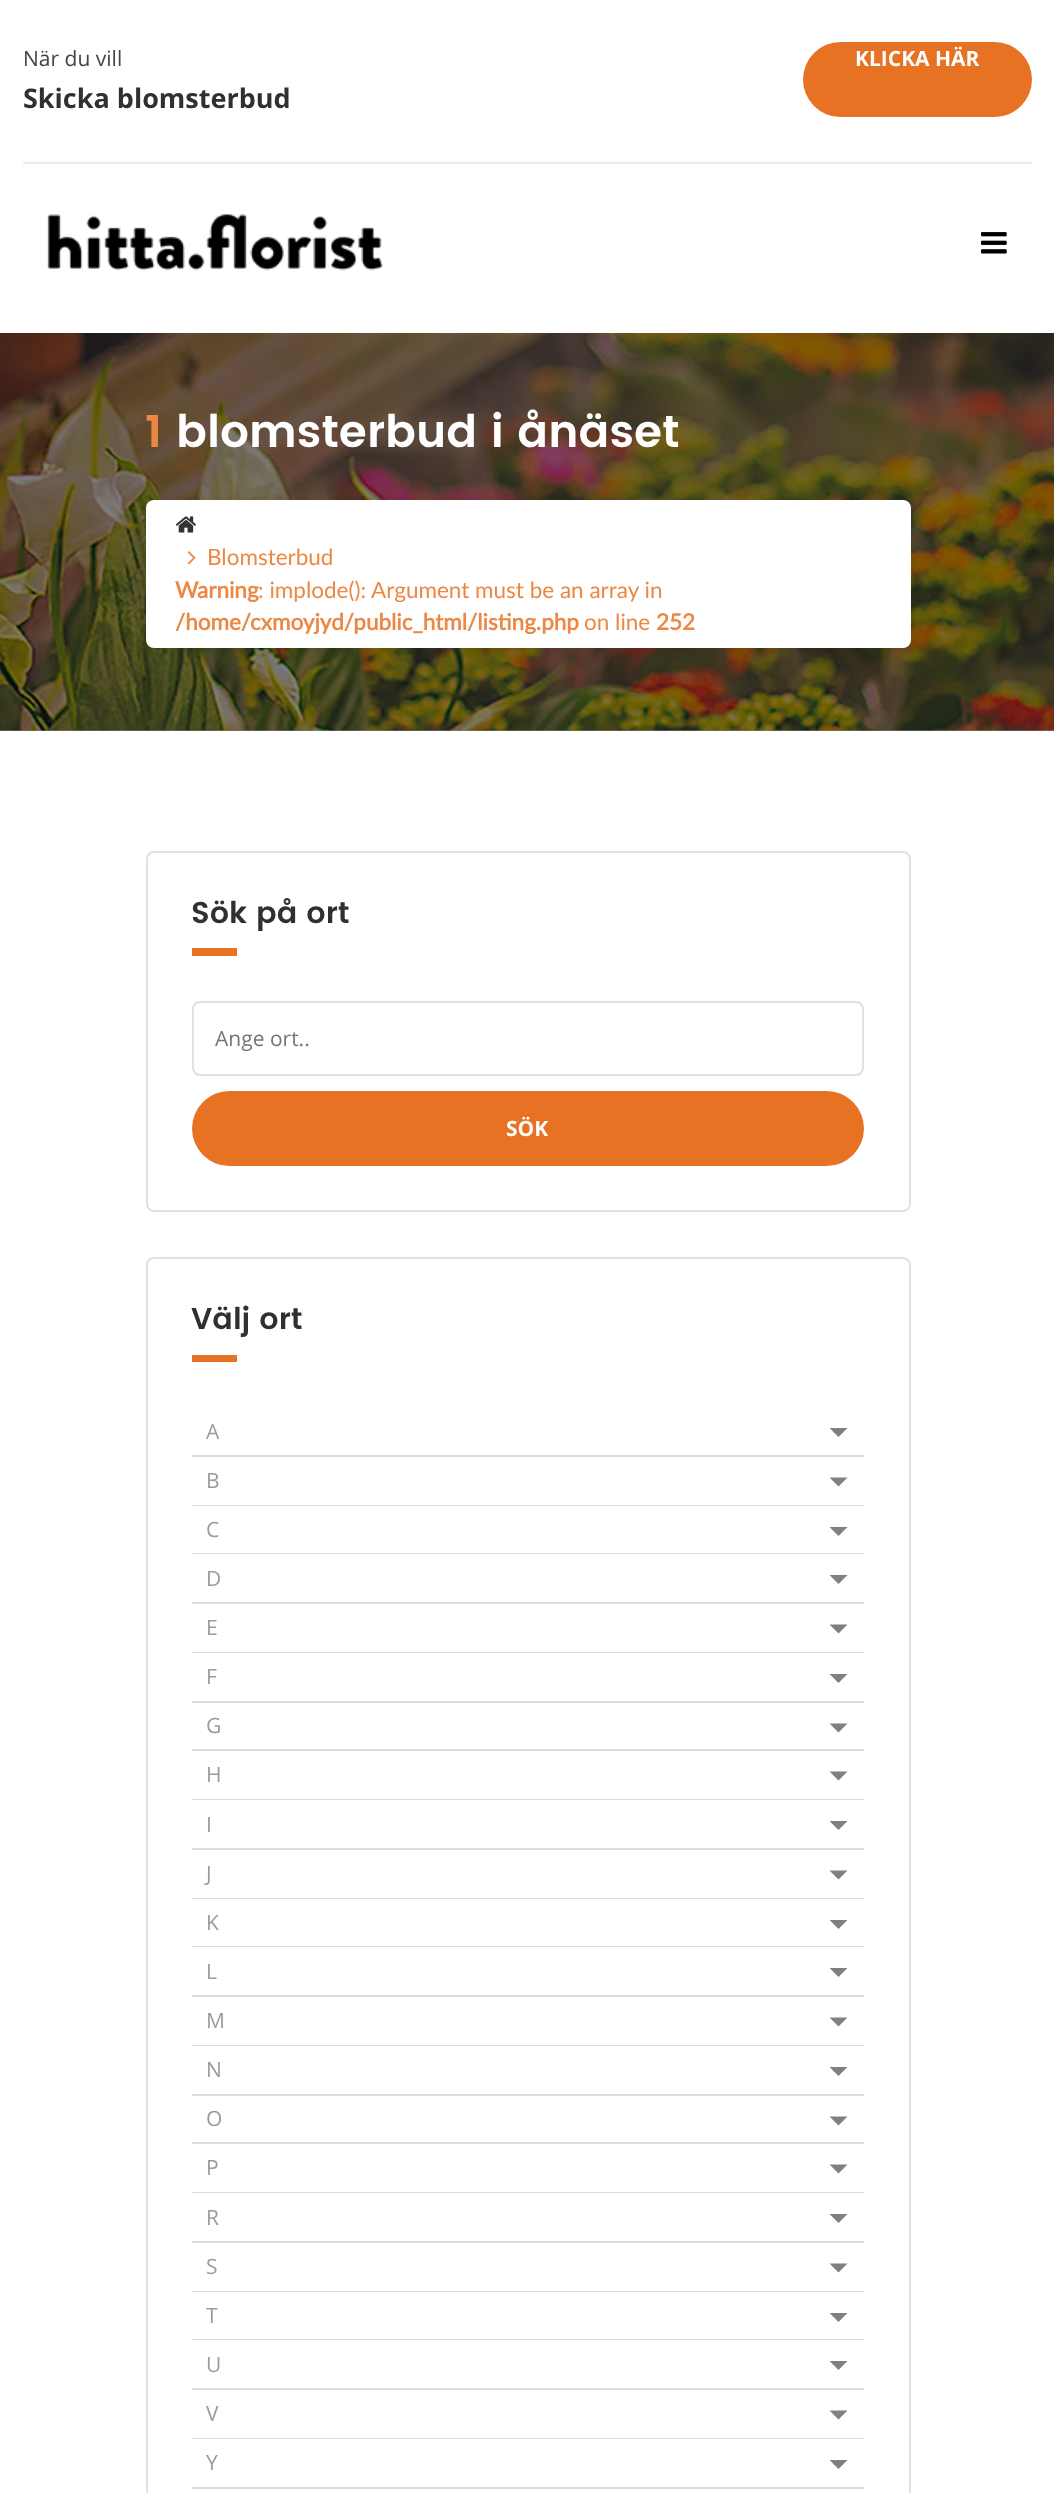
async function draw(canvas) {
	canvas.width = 1054;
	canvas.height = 2493;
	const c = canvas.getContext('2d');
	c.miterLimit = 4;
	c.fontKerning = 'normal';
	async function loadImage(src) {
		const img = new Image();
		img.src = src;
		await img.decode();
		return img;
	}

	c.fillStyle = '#fff';
	c.fillRect(0, 0, 1054, 2493);
	c.fillStyle = '#808080';
	c.fillRect(0, 730, 1054, 1);
	c.fillStyle = '#ebebeb';
	c.fillRect(23, 162, 1009, 2);
	c.font = '21px Open Sans';
	c.fillStyle = '#444';
	c.fillText('När du vill', 23, 66);
	c.font = 'bold 27px Open Sans';
	c.fillStyle = '#303030';
	c.fillText('Skicka blomsterbud', 23, 108);
	c.fillStyle = '#e87224';
	c.beginPath();
	c.roundRect(803, 42, 229, 75, 37.5);
	c.fill();
	c.font = 'bold 21px Open Sans';
	c.fillStyle = '#fff';
	c.fillText('KLICKA HÄR', 855, 66);
	c.drawImage(await loadImage('img1.png'), 47, 214, 336, 57);
	c.drawImage(await loadImage('img2.png'), 981, 232, 26, 22);
	c.drawImage(await loadImage('img3.png'), 0, 333, 1054, 398);
	c.font = '600 45px Poppins';
	c.fillStyle = '#ec8744';
	c.fillText('1', 145, 447);
	c.fillStyle = '#fff';
	c.fillText('blomsterbud i ånäset', 176, 447);
	c.fillStyle = '#0000001a';
	c.filter = 'blur(4px)';
	c.beginPath();
	c.roundRect(146, 501, 765, 149, 8);
	c.fill();
	c.filter = 'none';
	c.fillStyle = '#fff';
	c.beginPath();
	c.roundRect(146, 500, 765, 148, 8);
	c.fill();
	c.drawImage(await loadImage('img4.png'), 175, 516, 21, 17);
	c.drawImage(await loadImage('img5.png'), 187, 551, 9, 14);
	c.font = '22.5px Lato';
	c.fillStyle = '#ec8744';
	c.fillText('Blomsterbud', 207, 565);
	c.font = 'bold 22.5px Lato';
	c.fillText('Warning', 175, 598);
	c.font = '22.5px Lato';
	c.fillText(': implode(): Argument must be an array in', 258, 598);
	c.font = 'bold 22.5px Lato';
	c.fillText('/home/cxmoyjyd/public_html/listing.php', 175, 630);
	c.font = '22.5px Lato';
	c.fillText('on line', 584, 630);
	c.font = 'bold 22.5px Lato';
	c.fillText('252', 656, 630);
	c.beginPath();
	c.roundRect(147, 852, 763, 359, 7);
	c.strokeStyle = '#e1e1e1';
	c.lineWidth = 2;
	c.stroke();
	c.font = '600 30px Poppins';
	c.fillStyle = '#303030';
	c.fillText('Sök på ort', 191, 923);
	c.fillStyle = '#e87224';
	c.fillRect(192, 948, 45, 8);
	c.beginPath();
	c.roundRect(193, 1002, 670, 73, 7);
	c.stroke();
	c.font = '21px Open Sans';
	c.fillStyle = '#757575';
	c.fillText('Ange ort..', 215, 1046);
	c.fillStyle = '#e87224';
	c.beginPath();
	c.roundRect(192, 1091, 672, 75, 37.5);
	c.fill();
	c.font = 'bold 21px Open Sans';
	c.fillStyle = '#fff';
	c.fillText('SÖK', 506, 1136);
	c.beginPath();
	c.roundRect(147, 1258, 763, 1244, 7);
	c.stroke();
	c.font = '600 30px Poppins';
	c.fillStyle = '#303030';
	c.fillText('Välj ort', 191, 1329);
	c.fillStyle = '#e87224';
	c.fillRect(192, 1355, 45, 7);
	c.fillStyle = '#ddd';
	c.fillRect(192, 1455, 672, 2);
	c.font = '21px Open Sans';
	c.fillStyle = '#9b9b9b';
	c.fillText('A', 206, 1439);
	c.fillStyle = '#808080';
	c.beginPath();
	c.moveTo(829.5, 1428);
	c.lineTo(838.5, 1437);
	c.lineTo(847.5, 1428);
	c.closePath();
	c.fill();
	c.fillStyle = '#ddd';
	c.fillRect(192, 1505, 672, 1);
	c.fillStyle = '#9b9b9b';
	c.fillText('B', 206, 1488);
	c.fillStyle = '#808080';
	c.beginPath();
	c.moveTo(829.5, 1477.5);
	c.lineTo(838.5, 1486.5);
	c.lineTo(847.5, 1477.5);
	c.closePath();
	c.fill();
	c.fillStyle = '#ddd';
	c.fillRect(192, 1553, 672, 1);
	c.fillStyle = '#9b9b9b';
	c.fillText('C', 206, 1537);
	c.fillStyle = '#808080';
	c.beginPath();
	c.moveTo(829.5, 1527);
	c.lineTo(838.5, 1536);
	c.lineTo(847.5, 1527);
	c.closePath();
	c.fill();
	c.fillStyle = '#ddd';
	c.fillRect(192, 1602, 672, 2);
	c.fillStyle = '#9b9b9b';
	c.fillText('D', 206, 1586);
	c.fillStyle = '#808080';
	c.beginPath();
	c.moveTo(829.5, 1575);
	c.lineTo(838.5, 1584);
	c.lineTo(847.5, 1575);
	c.closePath();
	c.fill();
	c.fillStyle = '#ddd';
	c.fillRect(192, 1652, 672, 1);
	c.fillStyle = '#9b9b9b';
	c.fillText('E', 206, 1635);
	c.fillStyle = '#808080';
	c.beginPath();
	c.moveTo(829.5, 1624.5);
	c.lineTo(838.5, 1633.5);
	c.lineTo(847.5, 1624.5);
	c.closePath();
	c.fill();
	c.fillStyle = '#ddd';
	c.fillRect(192, 1701, 672, 2);
	c.fillStyle = '#9b9b9b';
	c.fillText('F', 206, 1684);
	c.fillStyle = '#808080';
	c.beginPath();
	c.moveTo(829.5, 1674);
	c.lineTo(838.5, 1683);
	c.lineTo(847.5, 1674);
	c.closePath();
	c.fill();
	c.fillStyle = '#ddd';
	c.fillRect(192, 1749, 672, 2);
	c.fillStyle = '#9b9b9b';
	c.fillText('G', 206, 1733);
	c.fillStyle = '#808080';
	c.beginPath();
	c.moveTo(829.5, 1723.5);
	c.lineTo(838.5, 1732.5);
	c.lineTo(847.5, 1723.5);
	c.closePath();
	c.fill();
	c.fillStyle = '#ddd';
	c.fillRect(192, 1799, 672, 1);
	c.fillStyle = '#9b9b9b';
	c.fillText('H', 206, 1782);
	c.fillStyle = '#808080';
	c.beginPath();
	c.moveTo(829.5, 1771.5);
	c.lineTo(838.5, 1780.5);
	c.lineTo(847.5, 1771.5);
	c.closePath();
	c.fill();
	c.fillStyle = '#ddd';
	c.fillRect(192, 1848, 672, 2);
	c.fillStyle = '#9b9b9b';
	c.fillText('I', 206, 1832);
	c.fillStyle = '#808080';
	c.beginPath();
	c.moveTo(829.5, 1821);
	c.lineTo(838.5, 1830);
	c.lineTo(847.5, 1821);
	c.closePath();
	c.fill();
	c.fillStyle = '#ddd';
	c.fillRect(192, 1898, 672, 1);
	c.fillStyle = '#9b9b9b';
	c.fillText('J', 206, 1881);
	c.fillStyle = '#808080';
	c.beginPath();
	c.moveTo(829.5, 1870.5);
	c.lineTo(838.5, 1879.5);
	c.lineTo(847.5, 1870.5);
	c.closePath();
	c.fill();
	c.fillStyle = '#ddd';
	c.fillRect(192, 1946, 672, 1);
	c.fillStyle = '#9b9b9b';
	c.fillText('K', 206, 1930);
	c.fillStyle = '#808080';
	c.beginPath();
	c.moveTo(829.5, 1920);
	c.lineTo(838.5, 1929);
	c.lineTo(847.5, 1920);
	c.closePath();
	c.fill();
	c.fillStyle = '#ddd';
	c.fillRect(192, 1995, 672, 2);
	c.fillStyle = '#9b9b9b';
	c.fillText('L', 206, 1979);
	c.fillStyle = '#808080';
	c.beginPath();
	c.moveTo(829.5, 1968);
	c.lineTo(838.5, 1977);
	c.lineTo(847.5, 1968);
	c.closePath();
	c.fill();
	c.fillStyle = '#ddd';
	c.fillRect(192, 2045, 672, 1);
	c.fillStyle = '#9b9b9b';
	c.fillText('M', 206, 2028);
	c.fillStyle = '#808080';
	c.beginPath();
	c.moveTo(829.5, 2017.5);
	c.lineTo(838.5, 2026.5);
	c.lineTo(847.5, 2017.5);
	c.closePath();
	c.fill();
	c.fillStyle = '#ddd';
	c.fillRect(192, 2094, 672, 2);
	c.fillStyle = '#9b9b9b';
	c.fillText('N', 206, 2077);
	c.fillStyle = '#808080';
	c.beginPath();
	c.moveTo(829.5, 2067);
	c.lineTo(838.5, 2076);
	c.lineTo(847.5, 2067);
	c.closePath();
	c.fill();
	c.fillStyle = '#ddd';
	c.fillRect(192, 2142, 672, 2);
	c.fillStyle = '#9b9b9b';
	c.fillText('O', 206, 2126);
	c.fillStyle = '#808080';
	c.beginPath();
	c.moveTo(829.5, 2116.5);
	c.lineTo(838.5, 2125.5);
	c.lineTo(847.5, 2116.5);
	c.closePath();
	c.fill();
	c.fillStyle = '#ddd';
	c.fillRect(192, 2192, 672, 1);
	c.fillStyle = '#9b9b9b';
	c.fillText('P', 206, 2175);
	c.fillStyle = '#808080';
	c.beginPath();
	c.moveTo(829.5, 2164.5);
	c.lineTo(838.5, 2173.5);
	c.lineTo(847.5, 2164.5);
	c.closePath();
	c.fill();
	c.fillStyle = '#ddd';
	c.fillRect(192, 2241, 672, 2);
	c.fillStyle = '#9b9b9b';
	c.fillText('R', 206, 2225);
	c.fillStyle = '#808080';
	c.beginPath();
	c.moveTo(829.5, 2214);
	c.lineTo(838.5, 2223);
	c.lineTo(847.5, 2214);
	c.closePath();
	c.fill();
	c.fillStyle = '#ddd';
	c.fillRect(192, 2291, 672, 1);
	c.fillStyle = '#9b9b9b';
	c.fillText('S', 206, 2274);
	c.fillStyle = '#808080';
	c.beginPath();
	c.moveTo(829.5, 2263.5);
	c.lineTo(838.5, 2272.5);
	c.lineTo(847.5, 2263.5);
	c.closePath();
	c.fill();
	c.fillStyle = '#ddd';
	c.fillRect(192, 2339, 672, 1);
	c.fillStyle = '#9b9b9b';
	c.fillText('T', 206, 2323);
	c.fillStyle = '#808080';
	c.beginPath();
	c.moveTo(829.5, 2313);
	c.lineTo(838.5, 2322);
	c.lineTo(847.5, 2313);
	c.closePath();
	c.fill();
	c.fillStyle = '#ddd';
	c.fillRect(192, 2388, 672, 2);
	c.fillStyle = '#9b9b9b';
	c.fillText('U', 206, 2372);
	c.fillStyle = '#808080';
	c.beginPath();
	c.moveTo(829.5, 2361);
	c.lineTo(838.5, 2370);
	c.lineTo(847.5, 2361);
	c.closePath();
	c.fill();
	c.fillStyle = '#ddd';
	c.fillRect(192, 2438, 672, 1);
	c.fillStyle = '#9b9b9b';
	c.fillText('V', 206, 2421);
	c.fillStyle = '#808080';
	c.beginPath();
	c.moveTo(829.5, 2410.5);
	c.lineTo(838.5, 2419.5);
	c.lineTo(847.5, 2410.5);
	c.closePath();
	c.fill();
	c.fillStyle = '#ddd';
	c.fillRect(192, 2487, 672, 2);
	c.fillStyle = '#9b9b9b';
	c.fillText('Y', 206, 2470);
	c.fillStyle = '#808080';
	c.beginPath();
	c.moveTo(829.5, 2460);
	c.lineTo(838.5, 2469);
	c.lineTo(847.5, 2460);
	c.closePath();
	c.fill();
}

draw(document.querySelector('canvas'));
